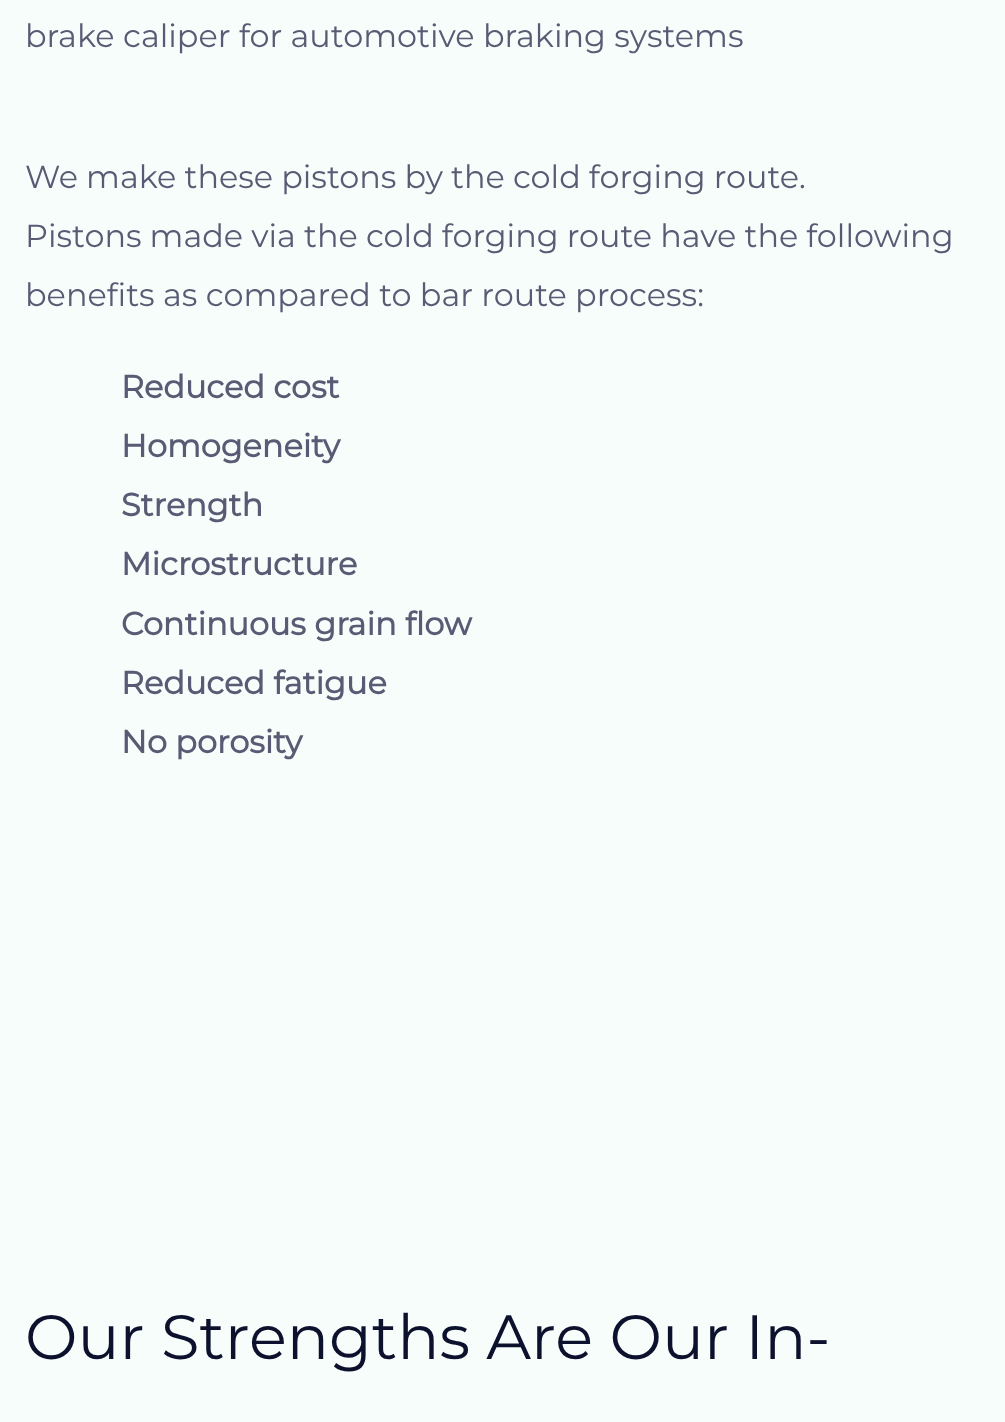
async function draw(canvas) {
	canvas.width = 1005;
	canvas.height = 1422;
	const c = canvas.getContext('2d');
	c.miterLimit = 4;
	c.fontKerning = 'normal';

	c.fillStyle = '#f7fdfb';
	c.fillRect(0, 0, 1005, 1422);
	c.font = '100 31.9px Montserrat';
	c.fillStyle = '#575c74';
	c.fillText('brake caliper for automotive braking systems', 25, 47);
	c.wordSpacing = '-0.25px';
	c.fillText('We make these pistons by the cold forging route.', 25, 188);
	c.fillText('Pistons made via the cold forging route have the following', 25, 247);
	c.wordSpacing = '0px';
	c.fillText('benefits as compared to bar route process:', 25, 306);
	c.font = 'bold 31.9px Montserrat';
	for (const [text, x, y] of [
		['Reduced cost', 121, 398],
		['Homogeneity', 121, 457],
		['Strength', 121, 516],
		['Microstructure', 121, 575],
		['Continuous grain flow', 121, 635],
		['Reduced fatigue', 121, 694],
		['No porosity', 121, 753],
	]) {
		c.fillText(text, x, y);
	}
	c.font = '100 62.5px Montserrat';
	c.fillStyle = '#0c122d';
	c.fillText('Our Strengths Are Our In-', 25, 1359);
}

draw(document.querySelector('canvas'));
